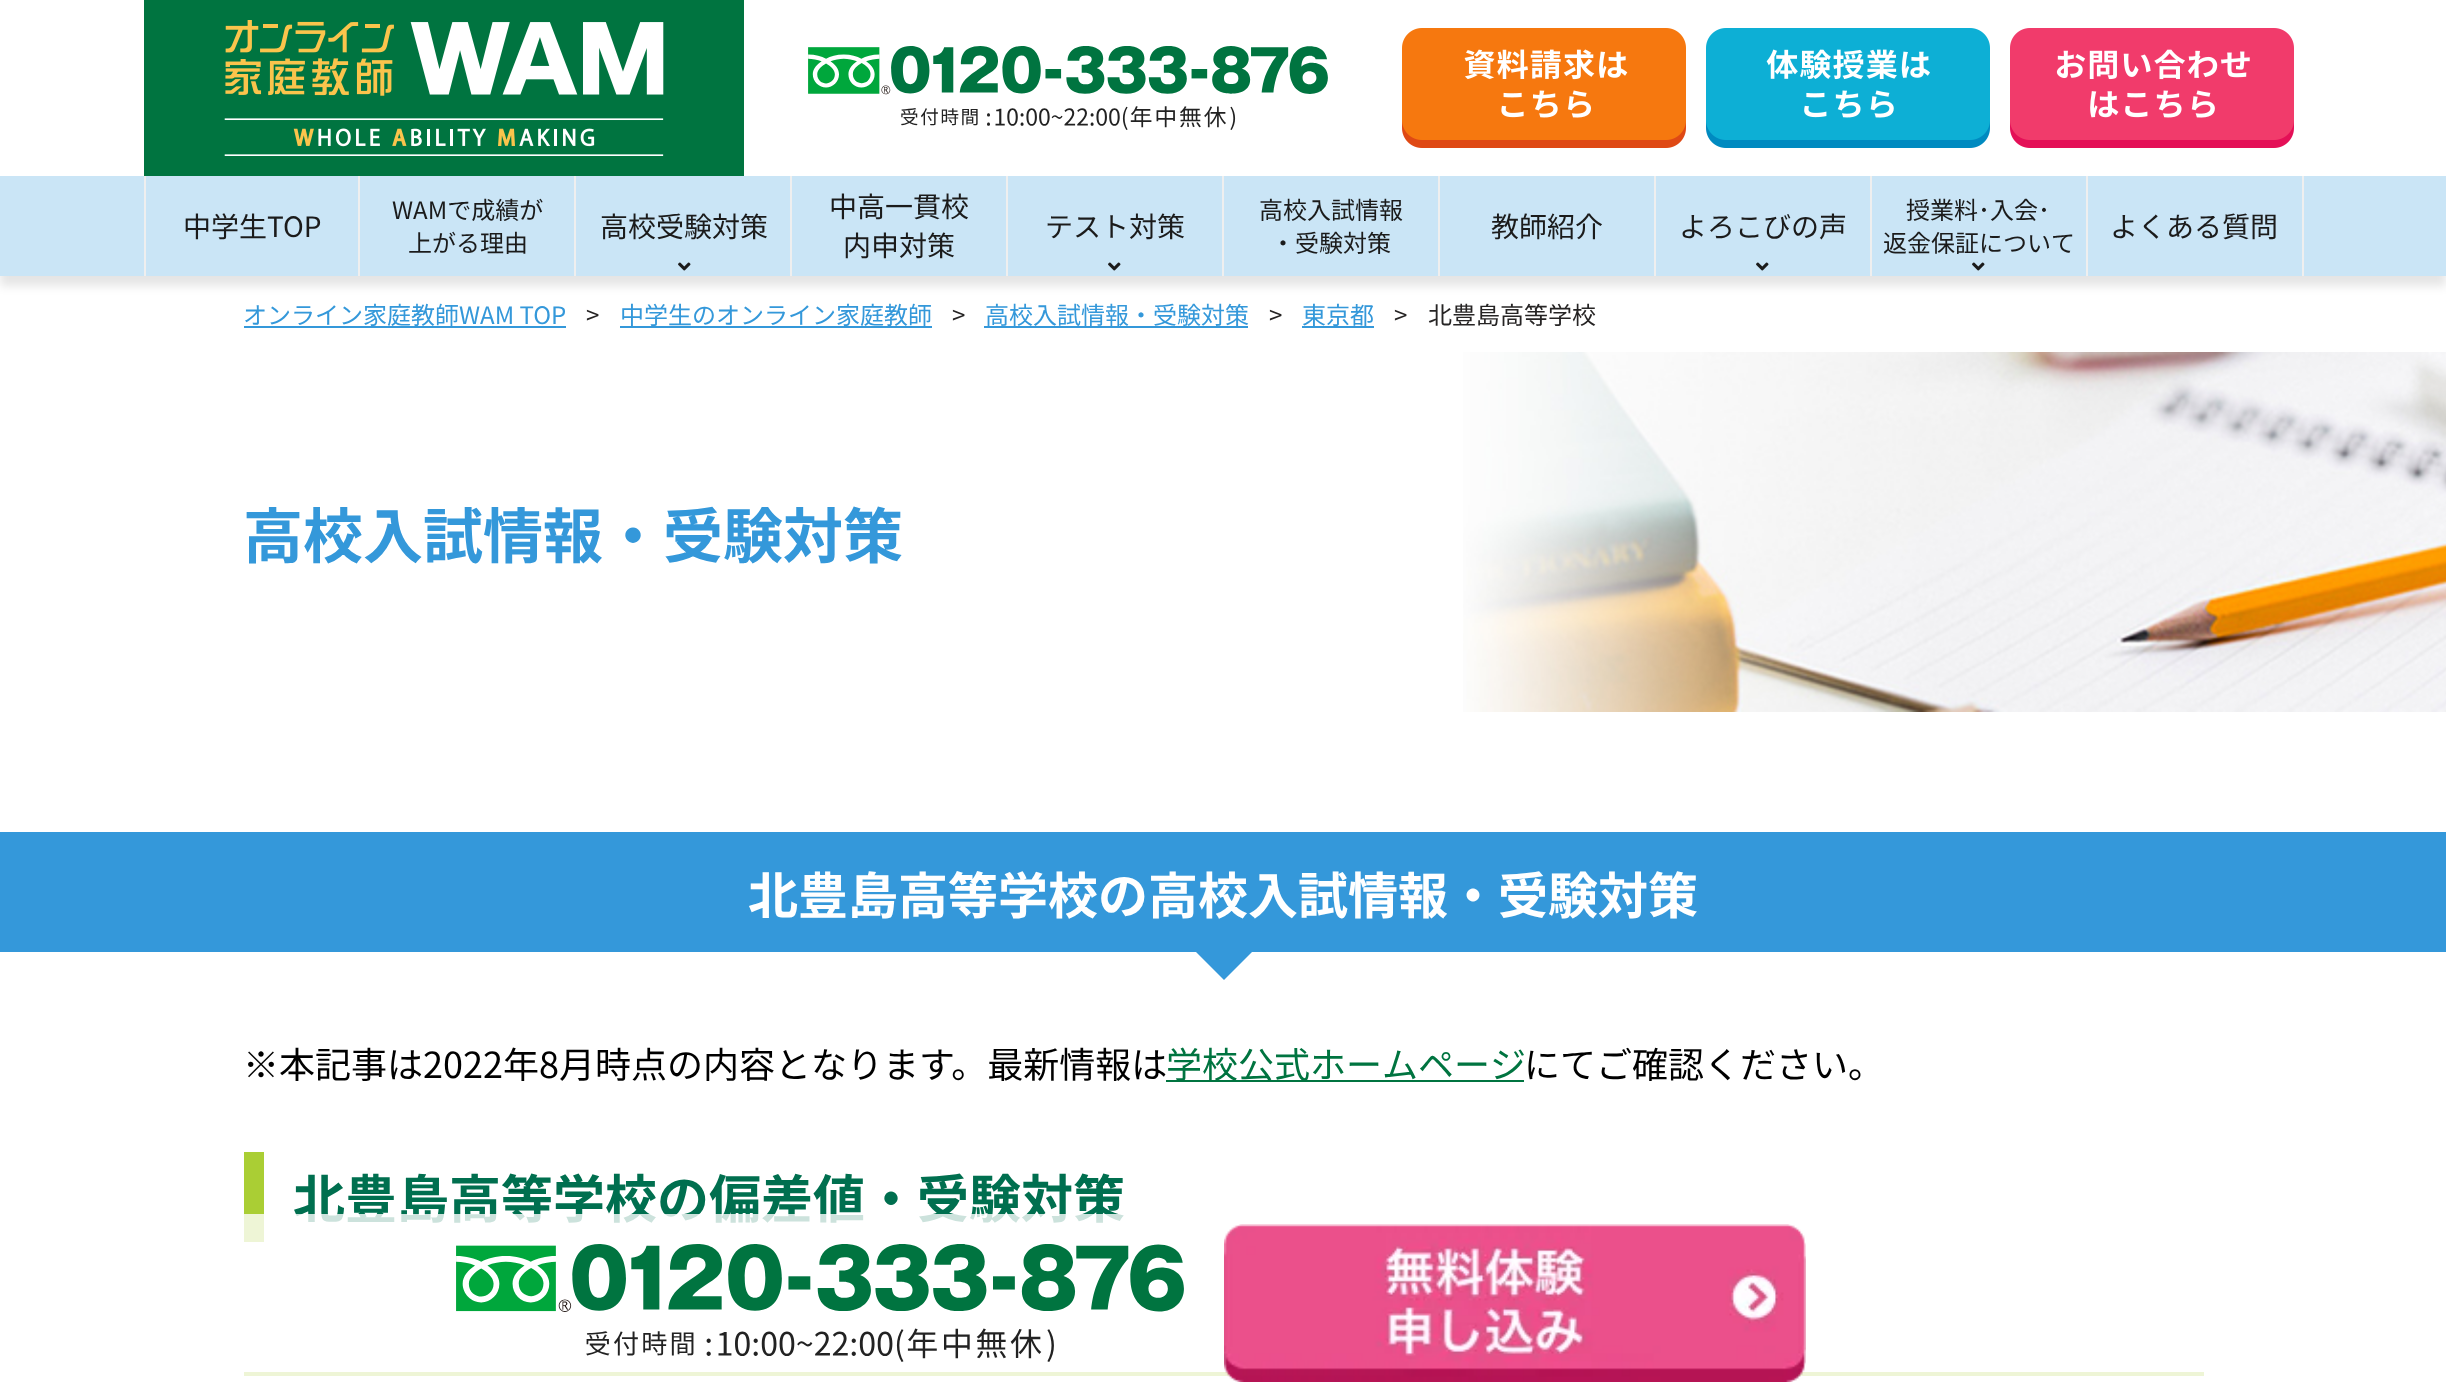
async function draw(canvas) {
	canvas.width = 2446;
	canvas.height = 1394;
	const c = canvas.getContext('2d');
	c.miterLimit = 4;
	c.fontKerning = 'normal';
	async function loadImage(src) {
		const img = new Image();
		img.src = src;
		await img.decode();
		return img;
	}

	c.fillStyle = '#fff';
	c.fillRect(0, 0, 2446, 1394);
	c.fillStyle = '#0000001a';
	c.filter = 'blur(5px)';
	c.beginPath();
	c.rect(0, 186, 2446, 100);
	c.fill();
	c.filter = 'none';
	c.fillStyle = '#007440';
	c.fillRect(144, 0, 600, 176);
	c.drawImage(await loadImage('img1.png'), 224, 20, 440, 136);
	c.drawImage(await loadImage('img2.png'), 808, 46, 520, 84);
	c.drawImage(await loadImage('img3.png'), 1402, 28, 284, 120);
	c.drawImage(await loadImage('img4.png'), 1706, 28, 284, 120);
	c.drawImage(await loadImage('img5.png'), 2010, 28, 284, 120);
	for (const [x, y, w, h, color] of [
		[0, 176, 2446, 100, '#cae5f6'],
		[2302, 176, 2, 100, '#efefef'],
		[144, 176, 2, 100, '#efefef'],
	]) {
		c.fillStyle = color;
		c.fillRect(x, y, w, h);
	}
	c.font = '28px Noto Sans JP';
	c.fillStyle = '#1b1b1b';
	c.fillText('中学生TOP', 183, 237);
	c.fillStyle = '#efefef';
	c.fillRect(358, 176, 2, 100);
	c.font = '24px Noto Sans JP';
	c.fillStyle = '#1b1b1b';
	c.fillText('WAMで成績が', 392, 219);
	c.fillText('上がる理由', 408, 252);
	c.fillStyle = '#efefef';
	c.fillRect(574, 176, 2, 100);
	c.font = '28px Noto Sans JP';
	c.fillStyle = '#1b1b1b';
	c.fillText('高校受験対策', 600, 237);
	c.drawImage(await loadImage('img6.png'), 678, 262, 13, 9);
	c.fillStyle = '#efefef';
	c.fillRect(790, 176, 2, 100);
	c.fillStyle = '#1b1b1b';
	c.fillText('中高一貫校', 829, 217);
	c.fillText('内申対策', 843, 256);
	c.fillStyle = '#efefef';
	c.fillRect(1006, 176, 2, 100);
	c.fillStyle = '#1b1b1b';
	c.fillText('テスト対策', 1045, 237);
	c.drawImage(await loadImage('img6.png'), 1108, 262, 13, 9);
	c.fillStyle = '#efefef';
	c.fillRect(1222, 176, 2, 100);
	c.font = '24px Noto Sans JP';
	c.fillStyle = '#1b1b1b';
	c.fillText('高校入試情報', 1259, 219);
	c.fillText('・受験対策', 1271, 252);
	c.fillStyle = '#efefef';
	c.fillRect(1438, 176, 2, 100);
	c.font = '28px Noto Sans JP';
	c.fillStyle = '#1b1b1b';
	c.fillText('教師紹介', 1491, 237);
	c.fillStyle = '#efefef';
	c.fillRect(1654, 176, 2, 100);
	c.fillStyle = '#1b1b1b';
	c.fillText('よろこびの声', 1679, 237);
	c.drawImage(await loadImage('img6.png'), 1756, 262, 13, 9);
	c.fillStyle = '#efefef';
	c.fillRect(1870, 176, 2, 100);
	c.font = '24px Noto Sans JP';
	c.fillStyle = '#1b1b1b';
	c.fillText('授業料･入会･', 1906, 219);
	c.fillText('返金保証について', 1883, 252);
	c.drawImage(await loadImage('img6.png'), 1972, 262, 13, 9);
	c.fillStyle = '#efefef';
	c.fillRect(2086, 176, 2, 100);
	c.font = '28px Noto Sans JP';
	c.fillStyle = '#1b1b1b';
	c.fillText('よくある質問', 2110, 237);
	c.font = '24px Noto Sans JP';
	c.fillStyle = '#3498da';
	c.fillText('オンライン家庭教師WAM TOP', 243, 324);
	c.fillRect(244, 326, 322, 2);
	c.fillStyle = '#262424';
	c.fillText('>', 586, 324);
	c.fillStyle = '#3498da';
	c.fillText('中学生のオンライン家庭教師', 620, 324);
	c.fillRect(620, 326, 312, 2);
	c.fillStyle = '#262424';
	c.fillText('>', 952, 324);
	c.fillStyle = '#3498da';
	c.fillText('高校入試情報・受験対策', 985, 324);
	c.fillRect(984, 326, 264, 2);
	c.fillStyle = '#262424';
	c.fillText('>', 1269, 324);
	c.fillStyle = '#3498da';
	c.fillText('東京都', 1302, 324);
	c.fillRect(1302, 326, 72, 2);
	c.fillStyle = '#262424';
	c.fillText('>', 1394, 324);
	c.fillText('北豊島高等学校', 1428, 324);
	c.drawImage(await loadImage('img7.png'), 1463, 352, 983, 360);
	c.font = 'bold 60px Noto Sans JP';
	c.fillStyle = '#3498da';
	c.fillText('高校入試情報・受験対策', 243, 558);
	c.fillRect(0, 832, 2446, 120);
	c.font = 'bold 50px Noto Sans JP';
	c.fillStyle = '#fff';
	c.fillText('北豊島高等学校の高校入試情報・受験対策', 748, 914);
	c.fillStyle = '#3498da';
	c.beginPath();
	c.moveTo(1194, 950);
	c.lineTo(1254, 950);
	c.lineTo(1224, 980);
	c.closePath();
	c.fill();
	c.font = '36px Noto Sans JP';
	c.fillStyle = '#000';
	c.fillText('※本記事は2022年8月時点の内容となります。最新情報は', 243, 1078);
	c.fillStyle = '#007440';
	c.fillRect(1166, 1080, 358, 2);
	c.fillText('学校公式ホームページ', 1166, 1078);
	c.fillStyle = '#000';
	c.fillText('にてご確認ください。', 1524, 1078);
	c.fillStyle = '#aace34';
	c.fillRect(244, 1152, 20, 90);
	c.font = 'bold 52px Noto Sans JP';
	c.fillStyle = '#006f4f';
	c.fillText('北豊島高等学校の偏差値・受験対策', 293, 1218);
	c.fillStyle = '#aace34';
	c.fillRect(244, 1372, 1960, 4);
	c.fillStyle = '#ffffffcc';
	c.fillRect(244, 1214, 1960, 162);
	c.drawImage(await loadImage('img8.png'), 456, 1244, 728, 118);
	c.drawImage(await loadImage('img9.png'), 1224, 1224, 582, 158);
}

draw(document.querySelector('canvas'));
